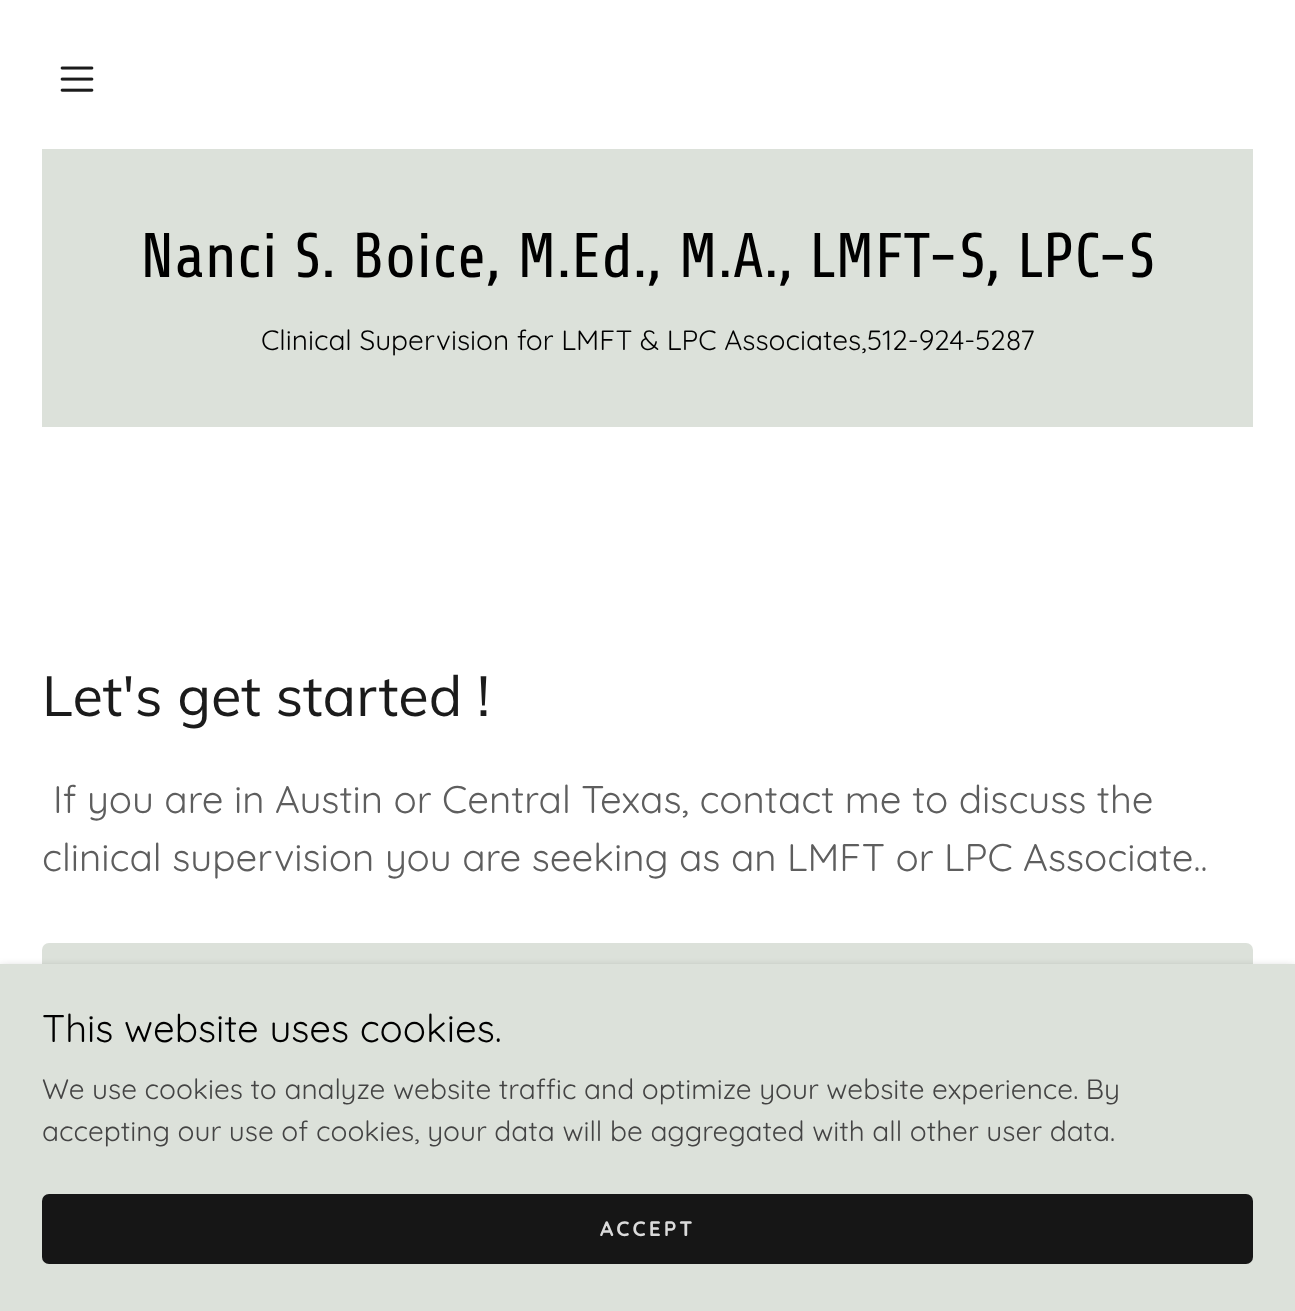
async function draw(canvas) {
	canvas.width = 1295;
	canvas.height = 1311;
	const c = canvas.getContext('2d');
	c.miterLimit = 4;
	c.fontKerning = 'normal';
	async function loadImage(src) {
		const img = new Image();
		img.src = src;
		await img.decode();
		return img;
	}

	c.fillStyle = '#fff';
	c.fillRect(0, 0, 1295, 1311);
	c.drawImage(await loadImage('img1.png'), 60, 66, 34, 26);
	c.fillStyle = '#dce1da';
	c.fillRect(42, 149, 1211, 278);
	c.font = '63px Share';
	c.fillStyle = '#000';
	c.fillText('Nanci S. Boice, M.Ed., M.A., LMFT-S, LPC-S', 140, 277);
	c.font = '28px Quicksand';
	c.fillText('Clinical Supervision for LMFT & LPC Associates,512-924-5287', 261, 350);
	c.font = '56px Muli';
	c.fillStyle = '#1b1b1b';
	c.fillText('Let\'s get started !', 42, 716);
	c.font = '38.5px Quicksand';
	c.fillStyle = '#5e5e5e';
	c.fillText('If you are in Austin or Central Texas, contact me to discuss the', 53, 813);
	c.fillText('clinical supervision you are seeking as an LMFT or LPC Associate..', 42, 871);
	c.fillStyle = '#dce1da';
	c.beginPath();
	c.roundRect(42, 943, 1211, 98, 7);
	c.fill();
	c.fillStyle = '#0000004d';
	c.filter = 'blur(5px)';
	c.beginPath();
	c.rect(0, 968, 1295, 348);
	c.fill();
	c.filter = 'none';
	c.fillStyle = '#dce1da';
	c.fillRect(0, 964, 1295, 347);
	c.fillStyle = '#000';
	c.fillText('This website uses cookies.', 42, 1042);
	c.font = '28px Quicksand';
	c.fillStyle = '#444';
	c.fillText('We use cookies to analyze website traffic and optimize your website experience. By', 42, 1099);
	c.fillText('accepting our use of cookies, your data will be aggregated with all other user data.', 42, 1141);
	c.fillStyle = '#161616';
	c.beginPath();
	c.roundRect(42, 1194, 1211, 70, 7);
	c.fill();
	c.letterSpacing = '3px';
	c.font = 'bold 21px Quicksand';
	c.fillStyle = '#dbdbdb';
	c.fillText('ACCEPT', 600, 1236);
}

draw(document.querySelector('canvas'));
